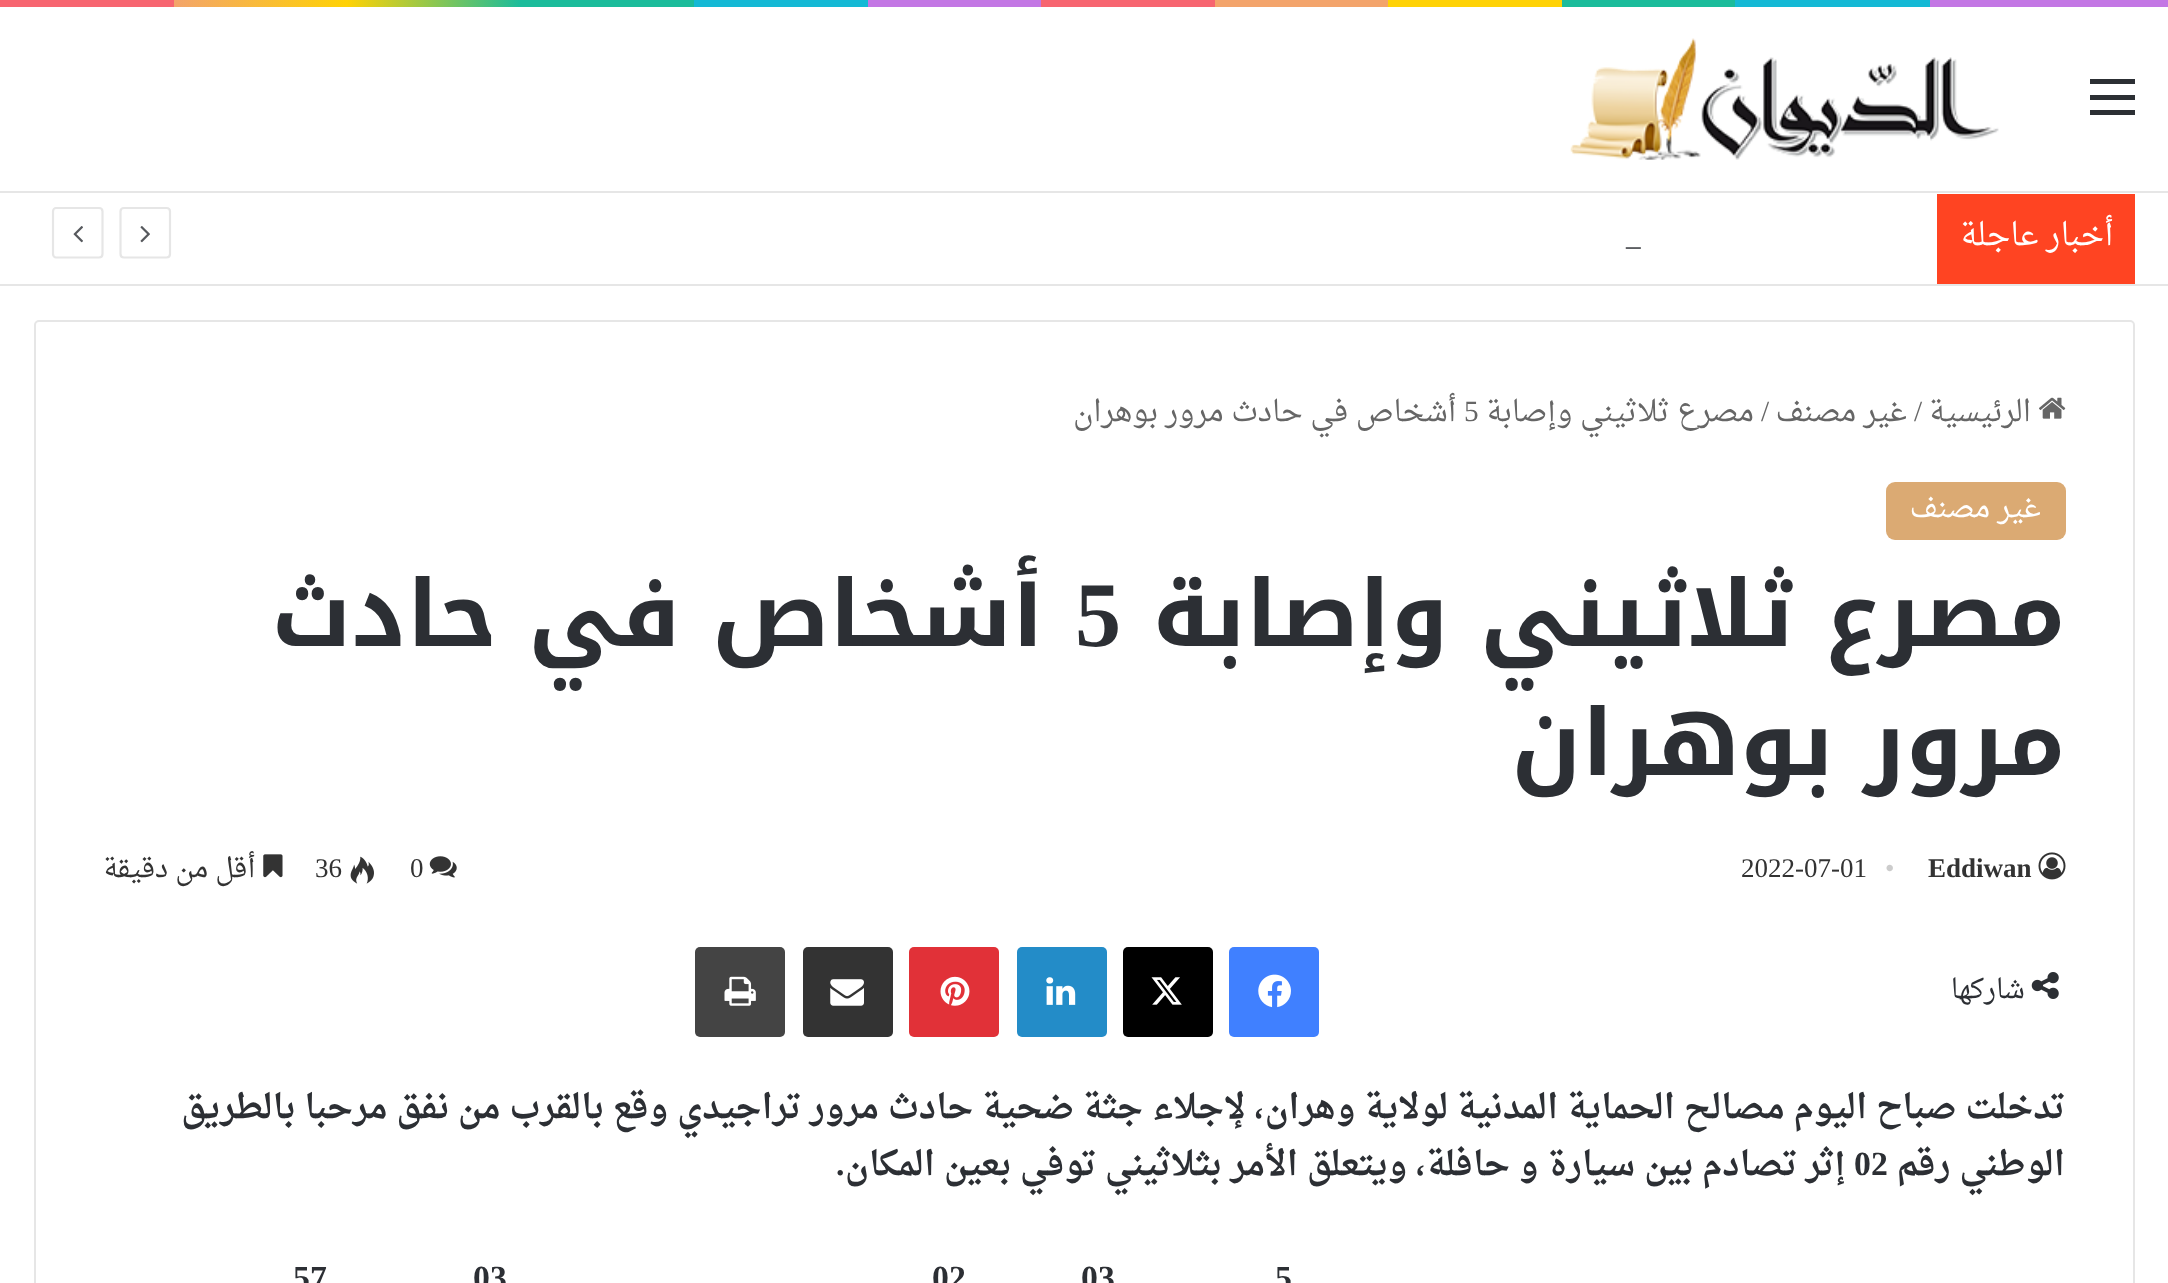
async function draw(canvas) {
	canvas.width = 2168;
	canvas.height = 1283;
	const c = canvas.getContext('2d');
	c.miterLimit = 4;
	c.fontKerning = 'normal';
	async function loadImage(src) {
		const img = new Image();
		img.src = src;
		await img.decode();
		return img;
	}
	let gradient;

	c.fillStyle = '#fff';
	c.fillRect(0, 0, 2168, 1283);
	gradient = c.createLinearGradient(0, 3.4, 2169, 3.4);
	gradient.addColorStop(0, '#f76570');
	gradient.addColorStop(0.08, '#f76570');
	gradient.addColorStop(0.08, '#f3a46b');
	gradient.addColorStop(0.16, '#ffd205');
	gradient.addColorStop(0.24, '#1bbc9b');
	gradient.addColorStop(0.32, '#1bbc9b');
	gradient.addColorStop(0.32, '#14b9d5');
	gradient.addColorStop(0.4, '#14b9d5');
	gradient.addColorStop(0.4, '#c377e4');
	gradient.addColorStop(0.48, '#c377e4');
	gradient.addColorStop(0.48, '#f76570');
	gradient.addColorStop(0.56, '#f76570');
	gradient.addColorStop(0.56, '#f3a46b');
	gradient.addColorStop(0.64, '#f3a46b');
	gradient.addColorStop(0.64, '#ffd205');
	gradient.addColorStop(0.72, '#ffd205');
	gradient.addColorStop(0.72, '#1bbc9b');
	gradient.addColorStop(0.8, '#1bbc9b');
	gradient.addColorStop(0.8, '#14b9d5');
	gradient.addColorStop(0.89, '#14b9d5');
	gradient.addColorStop(0.89, '#c377e4');
	gradient.addColorStop(1, '#c377e4');
	c.fillStyle = gradient;
	c.fillRect(0, 0, 2168, 7);
	for (const [x, y, w, h, color] of [
		[2090, 95, 45, 5, '#2c2f34'],
		[2090, 79, 45, 5, '#2c2f34'],
		[2090, 110, 45, 5, '#2c2f34'],
	]) {
		c.fillStyle = color;
		c.fillRect(x, y, w, h);
	}
	c.drawImage(await loadImage('img1.png'), 1570, 38, 429, 122);
	for (const [x, y, w, h, color] of [
		[0, 191, 2168, 2, '#e6e6e6'],
		[0, 284, 2168, 2, '#e6e6e6'],
		[1937, 194, 198, 90, '#f42'],
	]) {
		c.fillStyle = color;
		c.fillRect(x, y, w, h);
	}
	c.direction = 'rtl';
	c.font = '31.5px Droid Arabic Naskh';
	c.fillStyle = '#fff';
	c.fillText('أخبار عاجلة', 2113, 245);
	c.direction = 'ltr';
	c.font = '29.25px Liberation Serif';
	c.fillStyle = '#2c2f34';
	c.fillText('_', 1626, 245);
	c.beginPath();
	c.moveTo(166.5, 257.5);
	c.lineTo(124, 257.5);
	c.bezierCurveTo(122, 257.5, 120.5, 256, 120.5, 254);
	c.lineTo(120.5, 211.5);
	c.bezierCurveTo(120.5, 209.5, 122, 208, 124, 208);
	c.lineTo(166.5, 208);
	c.bezierCurveTo(168.5, 208, 170, 209.5, 170, 211.5);
	c.lineTo(170, 254);
	c.bezierCurveTo(170, 256, 168.5, 257.5, 166.5, 257.5);
	c.closePath();
	c.strokeStyle = '#e6e6e6';
	c.lineWidth = 2.2;
	c.stroke();
	c.drawImage(await loadImage('img2.png'), 140, 226, 10, 17);
	c.beginPath();
	c.moveTo(99, 257.5);
	c.lineTo(56, 257.5);
	c.bezierCurveTo(54.5, 257.5, 53, 256, 53, 254);
	c.lineTo(53, 211.5);
	c.bezierCurveTo(53, 209.5, 54.5, 208, 56, 208);
	c.lineTo(99, 208);
	c.bezierCurveTo(101, 208, 102.5, 209.5, 102.5, 211.5);
	c.lineTo(102.5, 254);
	c.bezierCurveTo(102.5, 256, 101, 257.5, 99, 257.5);
	c.closePath();
	c.stroke();
	c.drawImage(await loadImage('img3.png'), 73, 226, 10, 17);
	c.beginPath();
	c.roundRect(35, 321, 2099, 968, 4);
	c.lineWidth = 2;
	c.stroke();
	c.drawImage(await loadImage('img4.png'), 2039, 397, 27, 22);
	c.direction = 'rtl';
	c.font = '29.25px Droid Arabic Naskh';
	c.fillStyle = '#666';
	c.fillText('الرئيسية', 2031, 421);
	c.direction = 'ltr';
	c.font = '29.25px Liberation Serif';
	c.fillText('/', 1914, 421);
	c.direction = 'rtl';
	c.font = '29.25px Droid Arabic Naskh';
	c.fillText('غير مصنف', 1907, 421);
	c.direction = 'ltr';
	c.font = '29.25px Liberation Serif';
	c.fillText('/', 1761, 421);
	c.direction = 'rtl';
	c.font = '29.25px Droid Arabic Naskh';
	c.fillText('مصرع ثلاثيني وإصابة', 1754, 421);
	c.direction = 'ltr';
	c.font = '29.25px Liberation Serif';
	c.fillText('5', 1464, 421);
	c.direction = 'rtl';
	c.font = '29.25px Droid Arabic Naskh';
	c.fillText('أشخاص في حادث مرور بوهران', 1456, 421);
	c.fillStyle = '#dbaa73';
	c.beginPath();
	c.roundRect(1886, 482, 180, 58, 9);
	c.fill();
	c.fillStyle = '#fff';
	c.fillText('غير مصنف', 2041, 517);
	c.font = 'bold 92.25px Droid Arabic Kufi';
	c.fillStyle = '#2c2f34';
	c.fillText('مصرع ثلاثيني وإصابة', 2065, 646);
	c.direction = 'ltr';
	c.font = 'bold 92.25px Liberation Serif';
	c.fillText('5', 1075, 646);
	c.direction = 'rtl';
	c.font = 'bold 92.25px Droid Arabic Kufi';
	c.fillText('أشخاص في حادث', 1044, 646);
	c.fillText('مرور بوهران', 2065, 775);
	c.drawImage(await loadImage('img5.png'), 2038, 852, 28, 28);
	c.direction = 'ltr';
	c.font = 'bold 27px Liberation Serif';
	c.fillStyle = '#333';
	c.fillText('Eddiwan', 1928, 877);
	c.font = '27px Liberation Serif';
	c.fillStyle = '#ccc';
	c.fillText('•', 1885, 877);
	c.fillStyle = '#333';
	c.fillText('2022-07-01', 1741, 877);
	c.drawImage(await loadImage('img6.png'), 429, 856, 28, 22);
	c.fillText('0', 410, 877);
	c.drawImage(await loadImage('img7.png'), 350, 856, 24, 28);
	c.fillText('36', 315, 877);
	c.drawImage(await loadImage('img8.png'), 263, 854, 20, 24);
	c.direction = 'rtl';
	c.font = '27px Droid Arabic Naskh';
	c.fillText('أقل من دقيقة', 255, 877);
	c.drawImage(await loadImage('img9.png'), 2031, 972, 28, 27);
	c.fillStyle = '#2c2f34';
	c.fillText('شاركها', 2025, 998);
	c.fillStyle = '#4080ff';
	c.beginPath();
	c.roundRect(1229, 947, 90, 90, 5);
	c.fill();
	c.drawImage(await loadImage('img10.png'), 1258, 974, 33, 34);
	c.fillStyle = '#000';
	c.beginPath();
	c.roundRect(1123, 947, 90, 90, 5);
	c.fill();
	c.drawImage(await loadImage('img11.png'), 1151, 977, 31, 28);
	c.fillStyle = '#238cc8';
	c.beginPath();
	c.roundRect(1017, 947, 90, 90, 5);
	c.fill();
	c.drawImage(await loadImage('img12.png'), 1046, 977, 30, 28);
	c.fillStyle = '#e13138';
	c.beginPath();
	c.roundRect(909, 947, 90, 90, 5);
	c.fill();
	c.drawImage(await loadImage('img13.png'), 940, 976, 30, 30);
	c.fillStyle = '#333';
	c.beginPath();
	c.roundRect(803, 947, 90, 90, 5);
	c.fill();
	c.drawImage(await loadImage('img14.png'), 830, 979, 34, 27);
	c.fillStyle = '#444';
	c.beginPath();
	c.roundRect(695, 947, 90, 90, 5);
	c.fill();
	c.drawImage(await loadImage('img15.png'), 724, 976, 32, 30);
	c.font = 'bold 33.75px Droid Arabic Naskh';
	c.fillStyle = '#2c2f34';
	c.fillText('تدخلت صباح اليوم مصالح الحماية المدنية لولاية وهران، لإجلاء جثة ضحية حادث مرور تراجيدي وقع بالقرب من نفق مرحبا بالطريق', 2065, 1118);
	c.fillText('الوطني رقم', 2065, 1175);
	c.direction = 'ltr';
	c.font = 'bold 33.75px Liberation Serif';
	c.fillText('02', 1854, 1175);
	c.direction = 'rtl';
	c.font = 'bold 33.75px Droid Arabic Naskh';
	c.fillText('إثر تصادم بين سيارة و حافلة، ويتعلق الأمر بثلاثيني توفي بعين المكان', 1846, 1175);
	c.direction = 'ltr';
	c.font = 'bold 33.75px Liberation Serif';
	for (const [text, x, y] of [
		['.', 836, 1175],
		['5', 1275, 1289],
		['03', 1081, 1289],
		['02', 932, 1289],
		['03', 473, 1289],
		['57', 293, 1289],
	]) {
		c.fillText(text, x, y);
	}
}

draw(document.querySelector('canvas'));
